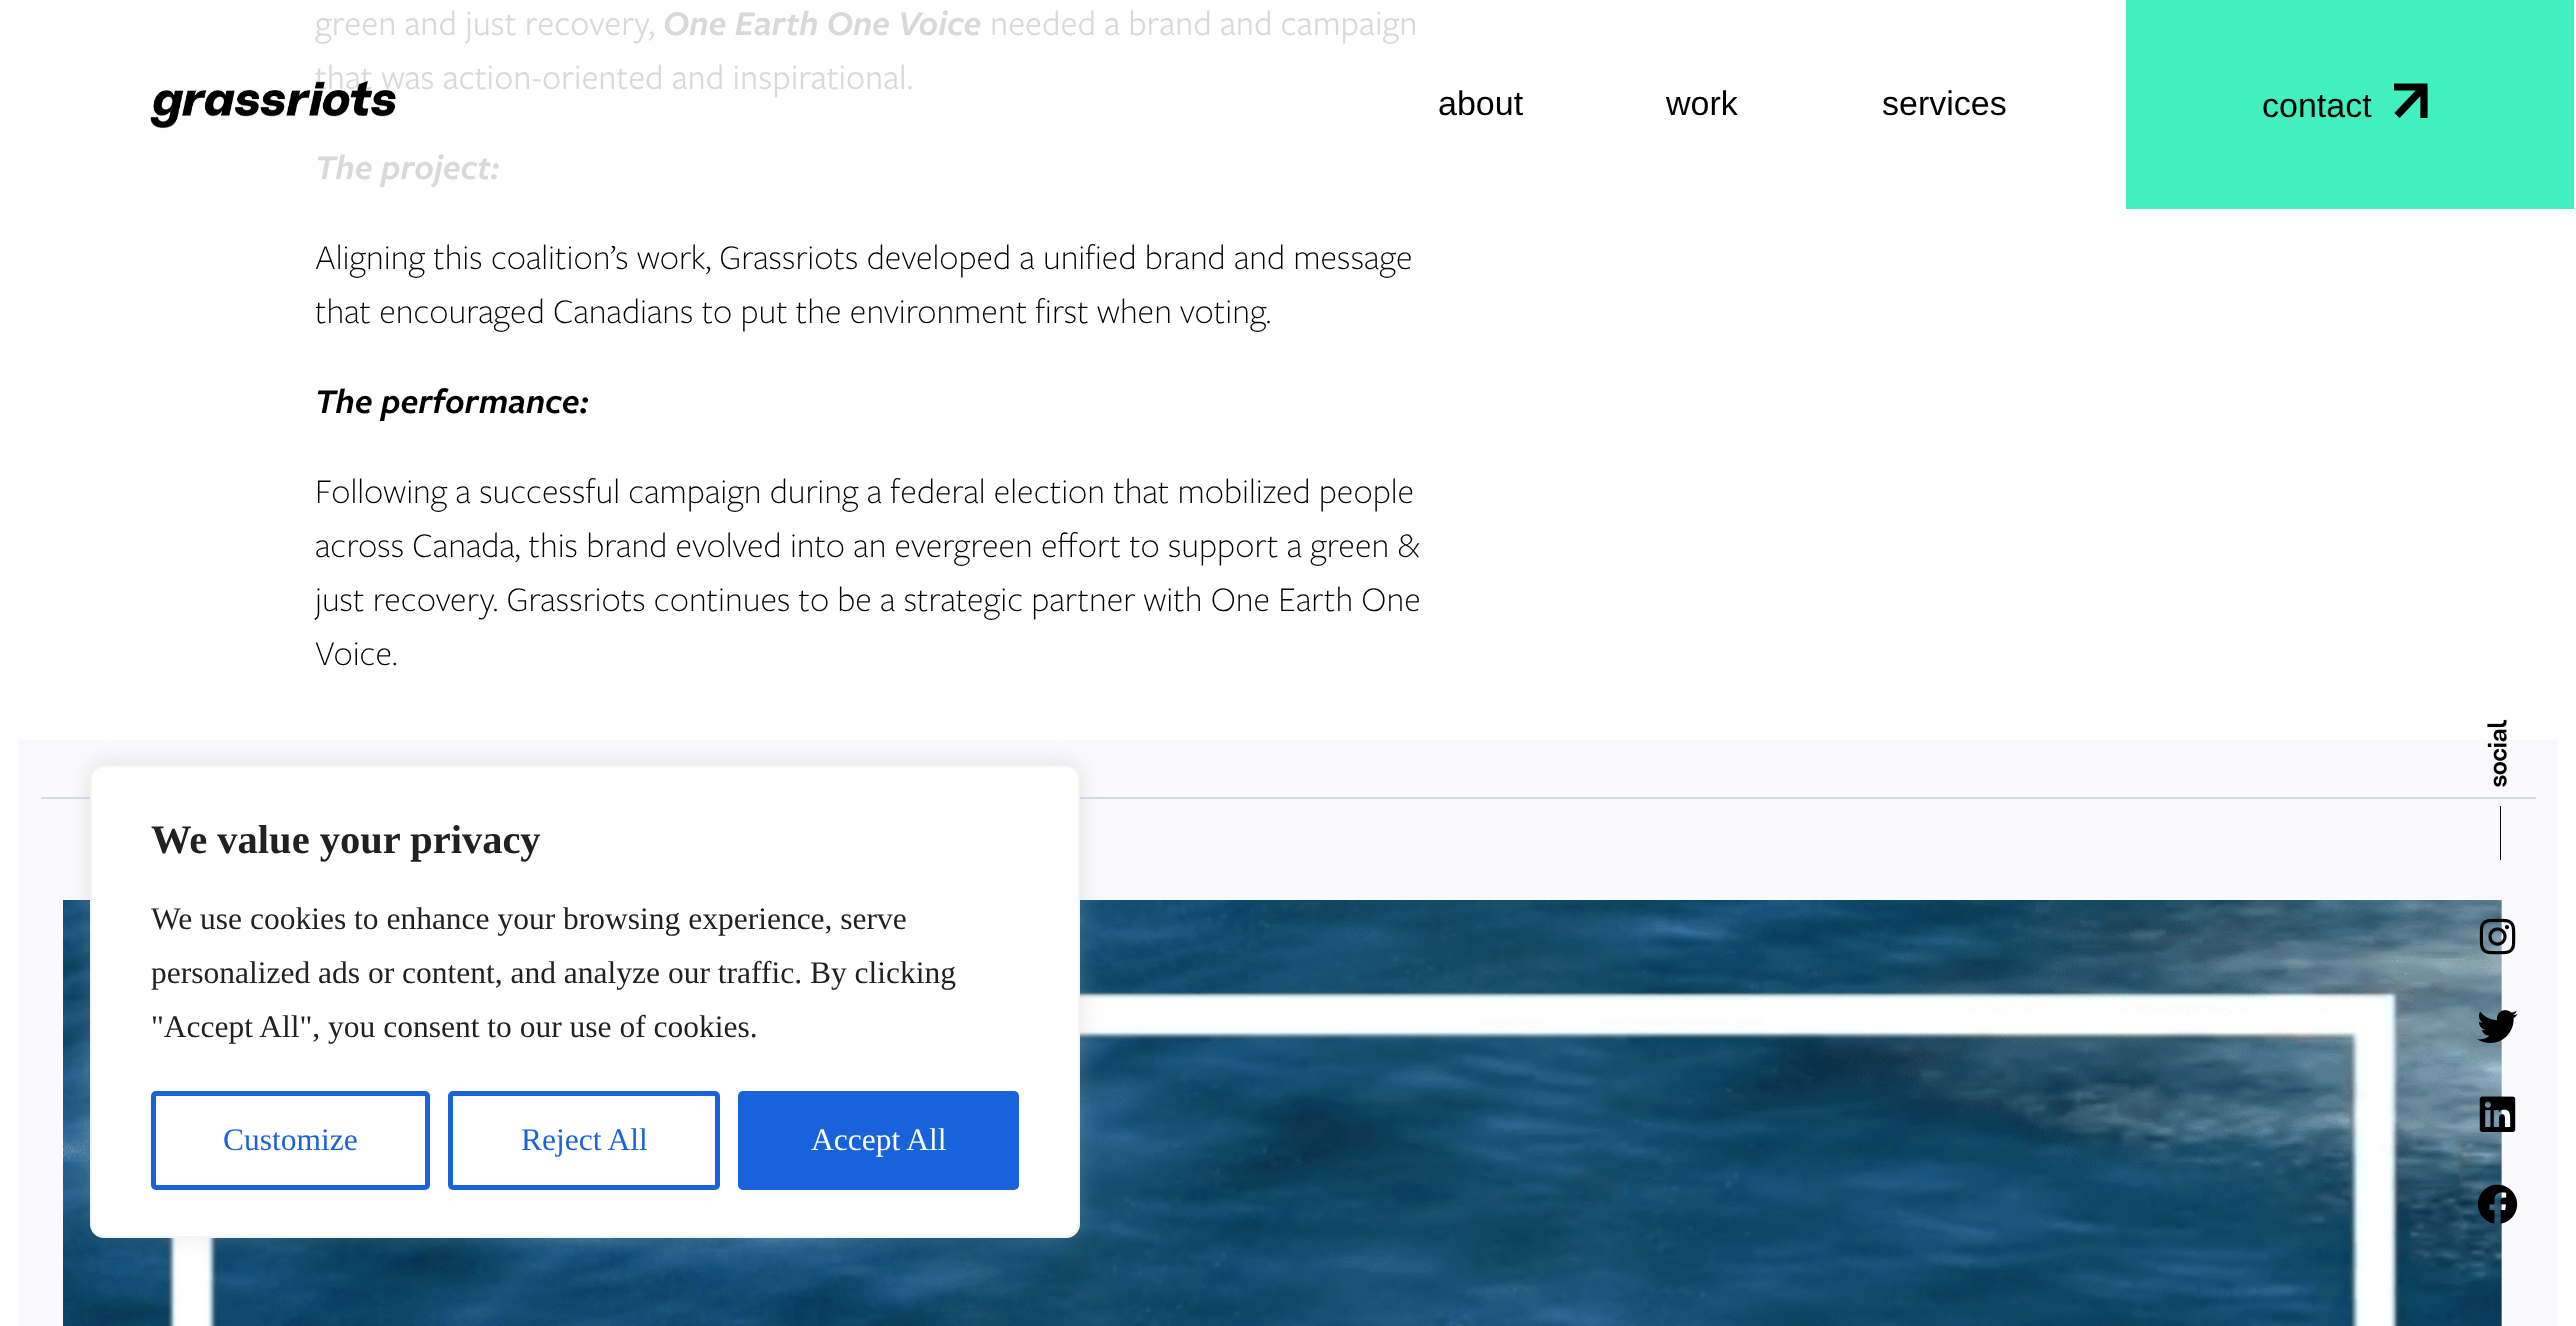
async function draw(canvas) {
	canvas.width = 2576;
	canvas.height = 1326;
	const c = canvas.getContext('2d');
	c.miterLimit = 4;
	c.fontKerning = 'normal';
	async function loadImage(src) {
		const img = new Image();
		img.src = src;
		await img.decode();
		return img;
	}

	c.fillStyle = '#fff';
	c.fillRect(0, 0, 2576, 1326);
	c.font = '36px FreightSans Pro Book';
	c.fillStyle = '#d9d9d9';
	c.fillText('green and just recovery,', 315, 35);
	c.font = 'italic 600 36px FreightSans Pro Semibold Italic';
	c.fillText('One Earth One Voice', 663, 35);
	c.font = '36px FreightSans Pro Book';
	c.fillText('needed a brand and campaign', 990, 35);
	c.fillText('that was action-oriented and inspirational.', 315, 89);
	c.font = 'italic 600 36px FreightSans Pro Semibold Italic';
	c.fillText('The project:', 315, 179);
	c.font = '300 36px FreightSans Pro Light';
	c.fillStyle = '#000';
	c.fillText('Aligning this coalition’s work, Grassriots developed a unified brand and message', 315, 269);
	c.fillText('that encouraged Canadians to put the environment first when voting.', 315, 323);
	c.font = 'italic 600 36px FreightSans Pro Semibold Italic';
	c.fillText('The performance:', 315, 413);
	c.font = '300 36px FreightSans Pro Light';
	for (const [text, x, y] of [
		['Following a successful campaign during a federal election that mobilized people', 315, 503],
		['across Canada, this brand evolved into an evergreen effort to support a green &', 315, 557],
		['just recovery. Grassriots continues to be a strategic partner with One Earth One', 315, 611],
		['Voice.', 315, 665],
	]) {
		c.fillText(text, x, y);
	}
	c.fillStyle = '#fafafc';
	c.fillRect(18, 740, 2540, 586);
	c.fillStyle = '#d3daeb';
	c.fillRect(41, 797, 2495, 2);
	c.drawImage(await loadImage('img1.png'), 63, 900, 2439, 426);
	c.drawImage(await loadImage('img2.png'), 150, 80, 246, 49);
	c.drawImage(await loadImage('img3.png'), 2487, 719, 20, 141);
	c.drawImage(await loadImage('img4.png'), 2479, 918, 37, 37);
	c.drawImage(await loadImage('img5.png'), 2477, 1010, 41, 33);
	c.drawImage(await loadImage('img6.png'), 2479, 1096, 37, 36);
	c.drawImage(await loadImage('img7.png'), 2477, 1184, 41, 40);
	c.font = '34px Liberation Sans';
	c.fillStyle = '#000';
	for (const [text, x, y] of [
		['about', 1438, 115],
		['work', 1666, 115],
		['services', 1882, 115],
	]) {
		c.fillText(text, x, y);
	}
	c.fillStyle = '#41f0be';
	c.fillRect(2126, 0, 448, 209);
	c.fillStyle = '#000';
	c.fillText('contact', 2262, 117);
	c.beginPath();
	c.moveTo(2397, 115.5);
	c.lineTo(2423.5, 87.5);
	c.moveTo(2394, 87);
	c.lineTo(2427.5, 87);
	c.moveTo(2424, 118);
	c.lineTo(2424, 85.5);
	c.strokeStyle = '#000';
	c.lineWidth = 7.2;
	c.stroke();
	c.fillStyle = '#acabab4d';
	c.filter = 'blur(11px)';
	c.beginPath();
	c.roundRect(90, 763, 990, 472, 14);
	c.fill();
	c.filter = 'none';
	c.fillStyle = '#fff';
	c.beginPath();
	c.roundRect(91, 766, 988, 471, 13);
	c.fill();
	c.strokeStyle = '#f4f4f4';
	c.lineWidth = 2;
	c.stroke();
	c.font = 'bold 40.5px Liberation Serif';
	c.fillStyle = '#212121';
	c.fillText('We value your privacy', 151, 853);
	c.font = '31.5px Liberation Serif';
	for (const [text, x, y] of [
		['We use cookies to enhance your browsing experience, serve', 151, 929],
		['personalized ads or content, and analyze our traffic. By clicking', 151, 983],
		['"Accept All", you consent to our use of cookies.', 151, 1037],
	]) {
		c.fillText(text, x, y);
	}
	c.beginPath();
	c.roundRect(153.5, 1093.5, 274, 94, 2.5);
	c.strokeStyle = '#1863dc';
	c.lineWidth = 5;
	c.stroke();
	c.fillStyle = '#1863dc';
	c.fillText('Customize', 223, 1150);
	c.beginPath();
	c.roundRect(450.5, 1093.5, 267, 94, 2.5);
	c.stroke();
	c.fillText('Reject All', 521, 1150);
	c.beginPath();
	c.roundRect(740.5, 1093.5, 276, 94, 2.5);
	c.fill();
	c.stroke();
	c.fillStyle = '#fff';
	c.fillText('Accept All', 811, 1150);
}

draw(document.querySelector('canvas'));
